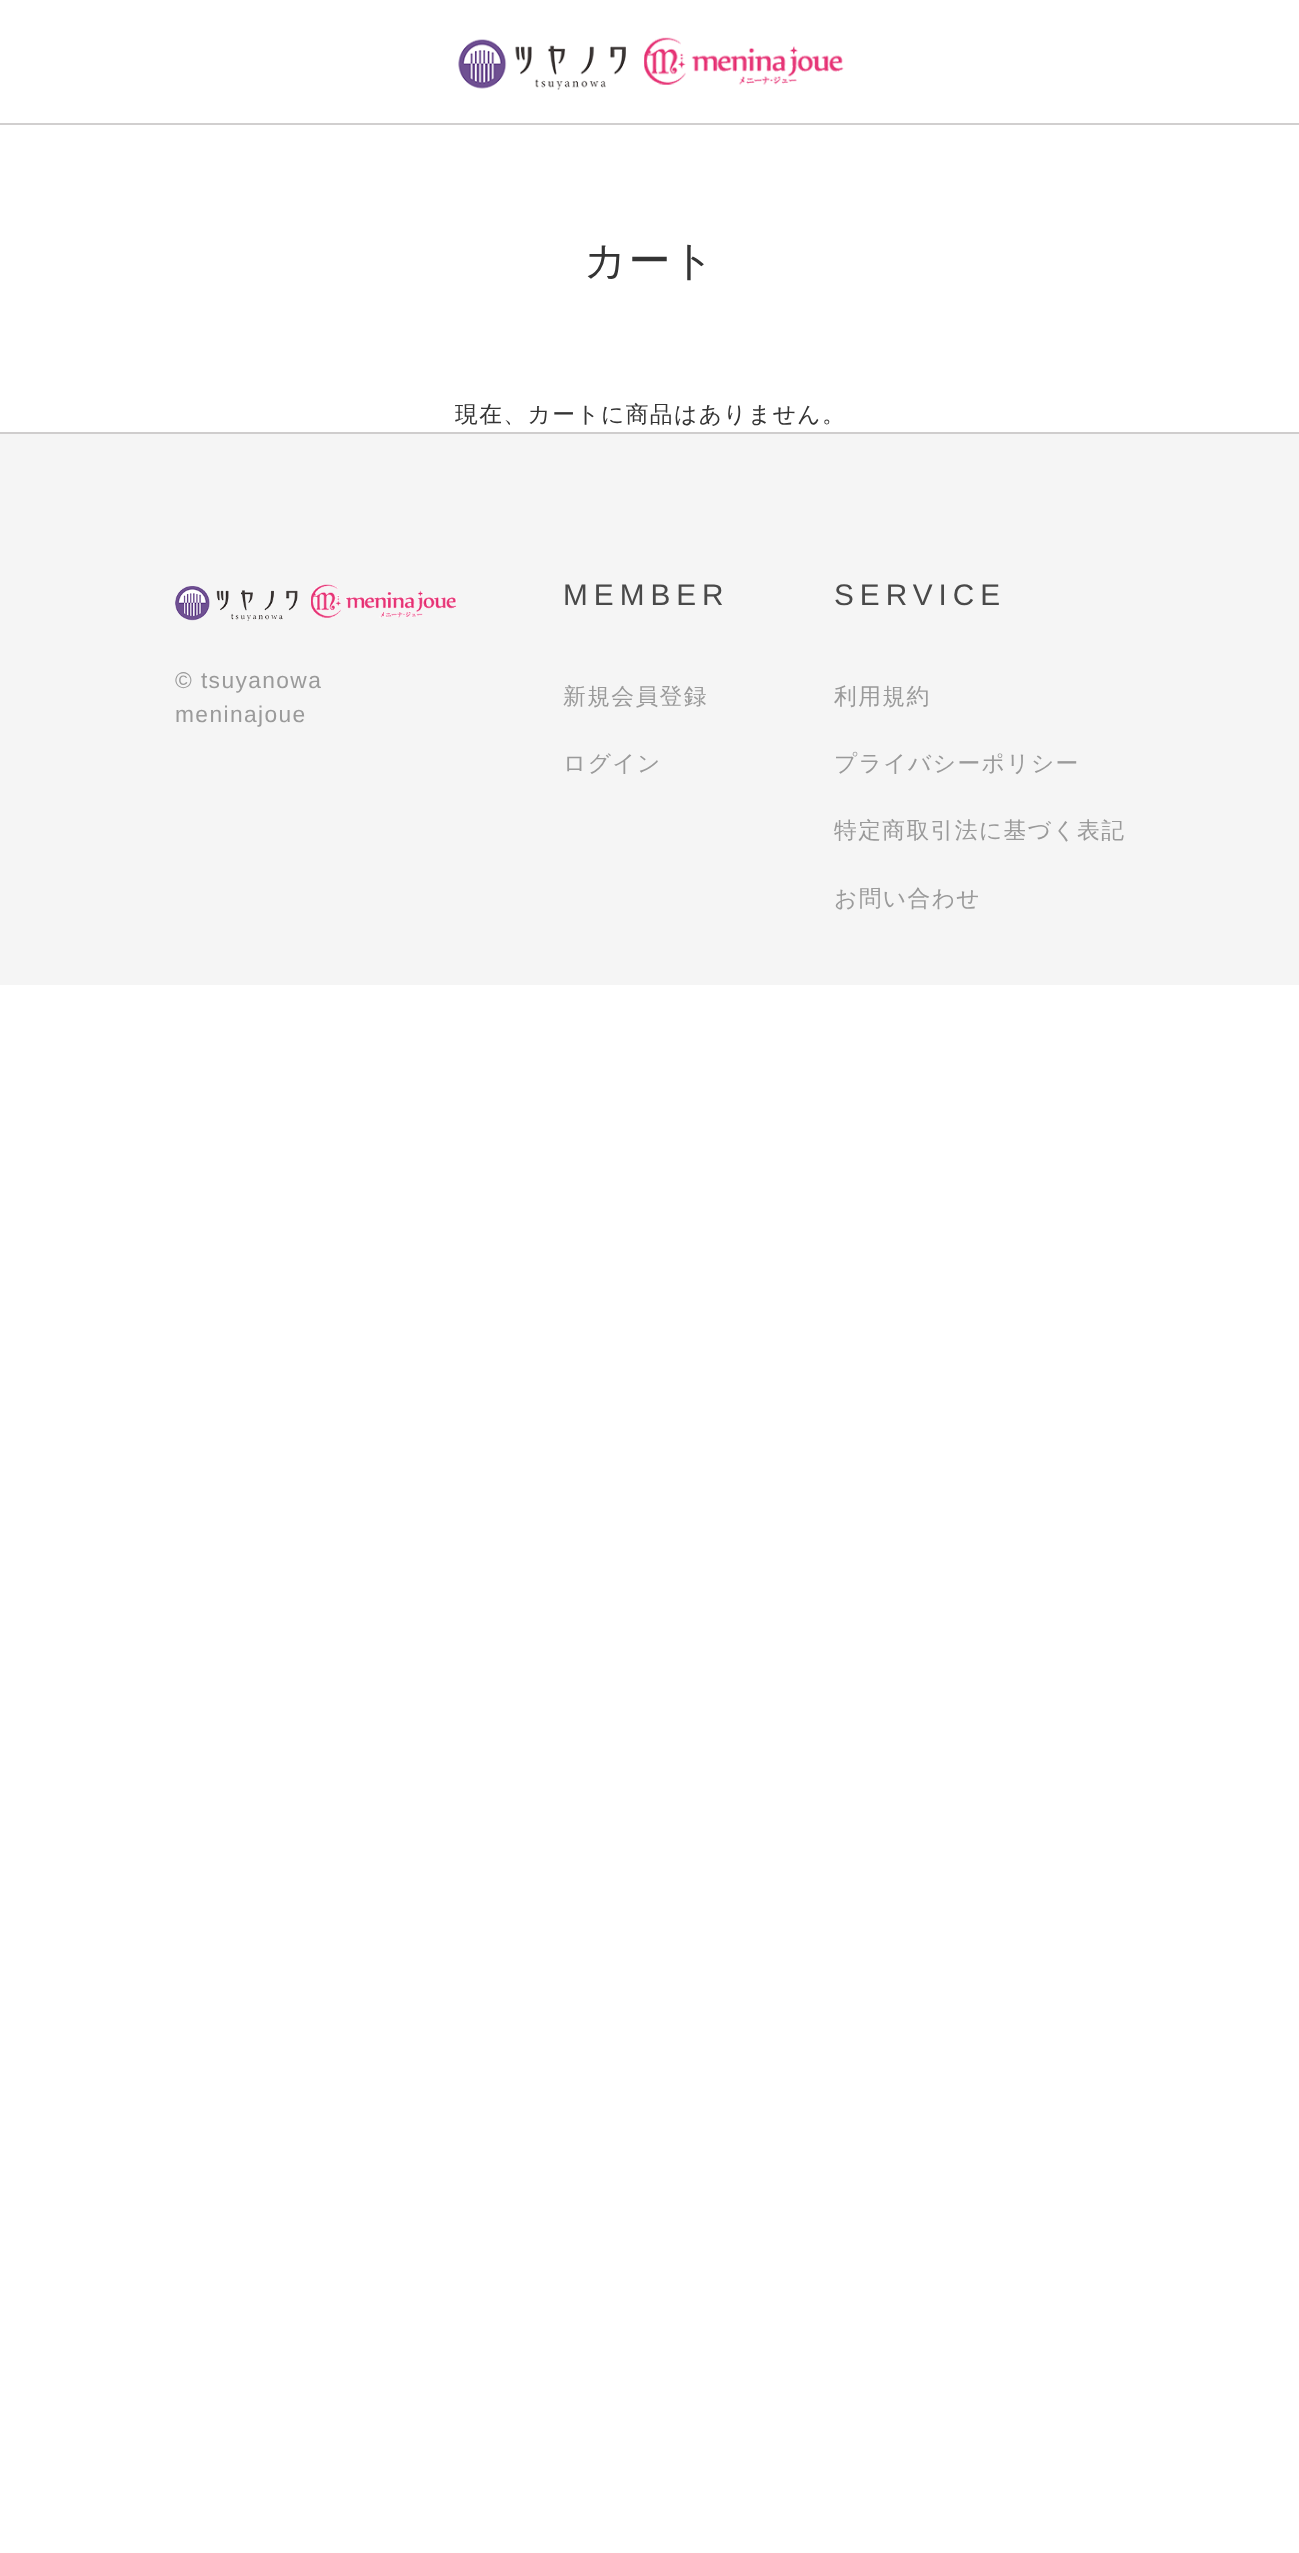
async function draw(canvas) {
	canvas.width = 1299;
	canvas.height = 2553;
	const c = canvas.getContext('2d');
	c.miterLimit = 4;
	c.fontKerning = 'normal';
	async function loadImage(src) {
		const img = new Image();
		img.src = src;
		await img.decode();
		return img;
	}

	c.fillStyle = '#fff';
	c.fillRect(0, 0, 1299, 2553);
	c.fillStyle = '#d1cfcf';
	c.fillRect(0, 123, 1299, 2);
	c.drawImage(await loadImage('img1.png'), 458, 37, 386, 53);
	c.letterSpacing = '1.4px';
	c.font = '500 42px WenQuanYi Zen Hei';
	c.fillStyle = '#343434';
	c.fillText('カート', 584, 275);
	c.font = '500 22.75px WenQuanYi Zen Hei';
	c.fillText('現在、カートに商品はありません。', 455, 422);
	c.fillStyle = '#f5f5f5';
	c.fillRect(0, 434, 1299, 551);
	c.fillStyle = '#cfcdcd';
	c.fillRect(0, 432, 1299, 2);
	c.drawImage(await loadImage('img2.png'), 175, 584, 282, 37);
	c.font = '22.75px Liberation Sans';
	c.fillStyle = '#9a9a9a';
	c.fillText('© tsuyanowa', 175, 688);
	c.fillText('meninajoue', 175, 722);
	c.letterSpacing = '6px';
	c.font = '29.75px Liberation Sans';
	c.fillStyle = '#494949';
	c.fillText('MEMBER', 563, 605);
	c.letterSpacing = '1.4px';
	c.font = '500 22.75px WenQuanYi Zen Hei';
	c.fillStyle = '#9a9a9a';
	c.fillText('新規会員登録', 563, 704);
	c.fillText('ログイン', 563, 771);
	c.letterSpacing = '6px';
	c.font = '29.75px Liberation Sans';
	c.fillStyle = '#494949';
	c.fillText('SERVICE', 834, 605);
	c.letterSpacing = '1.4px';
	c.font = '500 22.75px WenQuanYi Zen Hei';
	c.fillStyle = '#9a9a9a';
	for (const [text, x, y] of [
		['利用規約', 834, 704],
		['プライバシーポリシー', 834, 771],
		['特定商取引法に基づく表記', 834, 838],
		['お問い合わせ', 834, 906],
	]) {
		c.fillText(text, x, y);
	}
}

draw(document.querySelector('canvas'));
